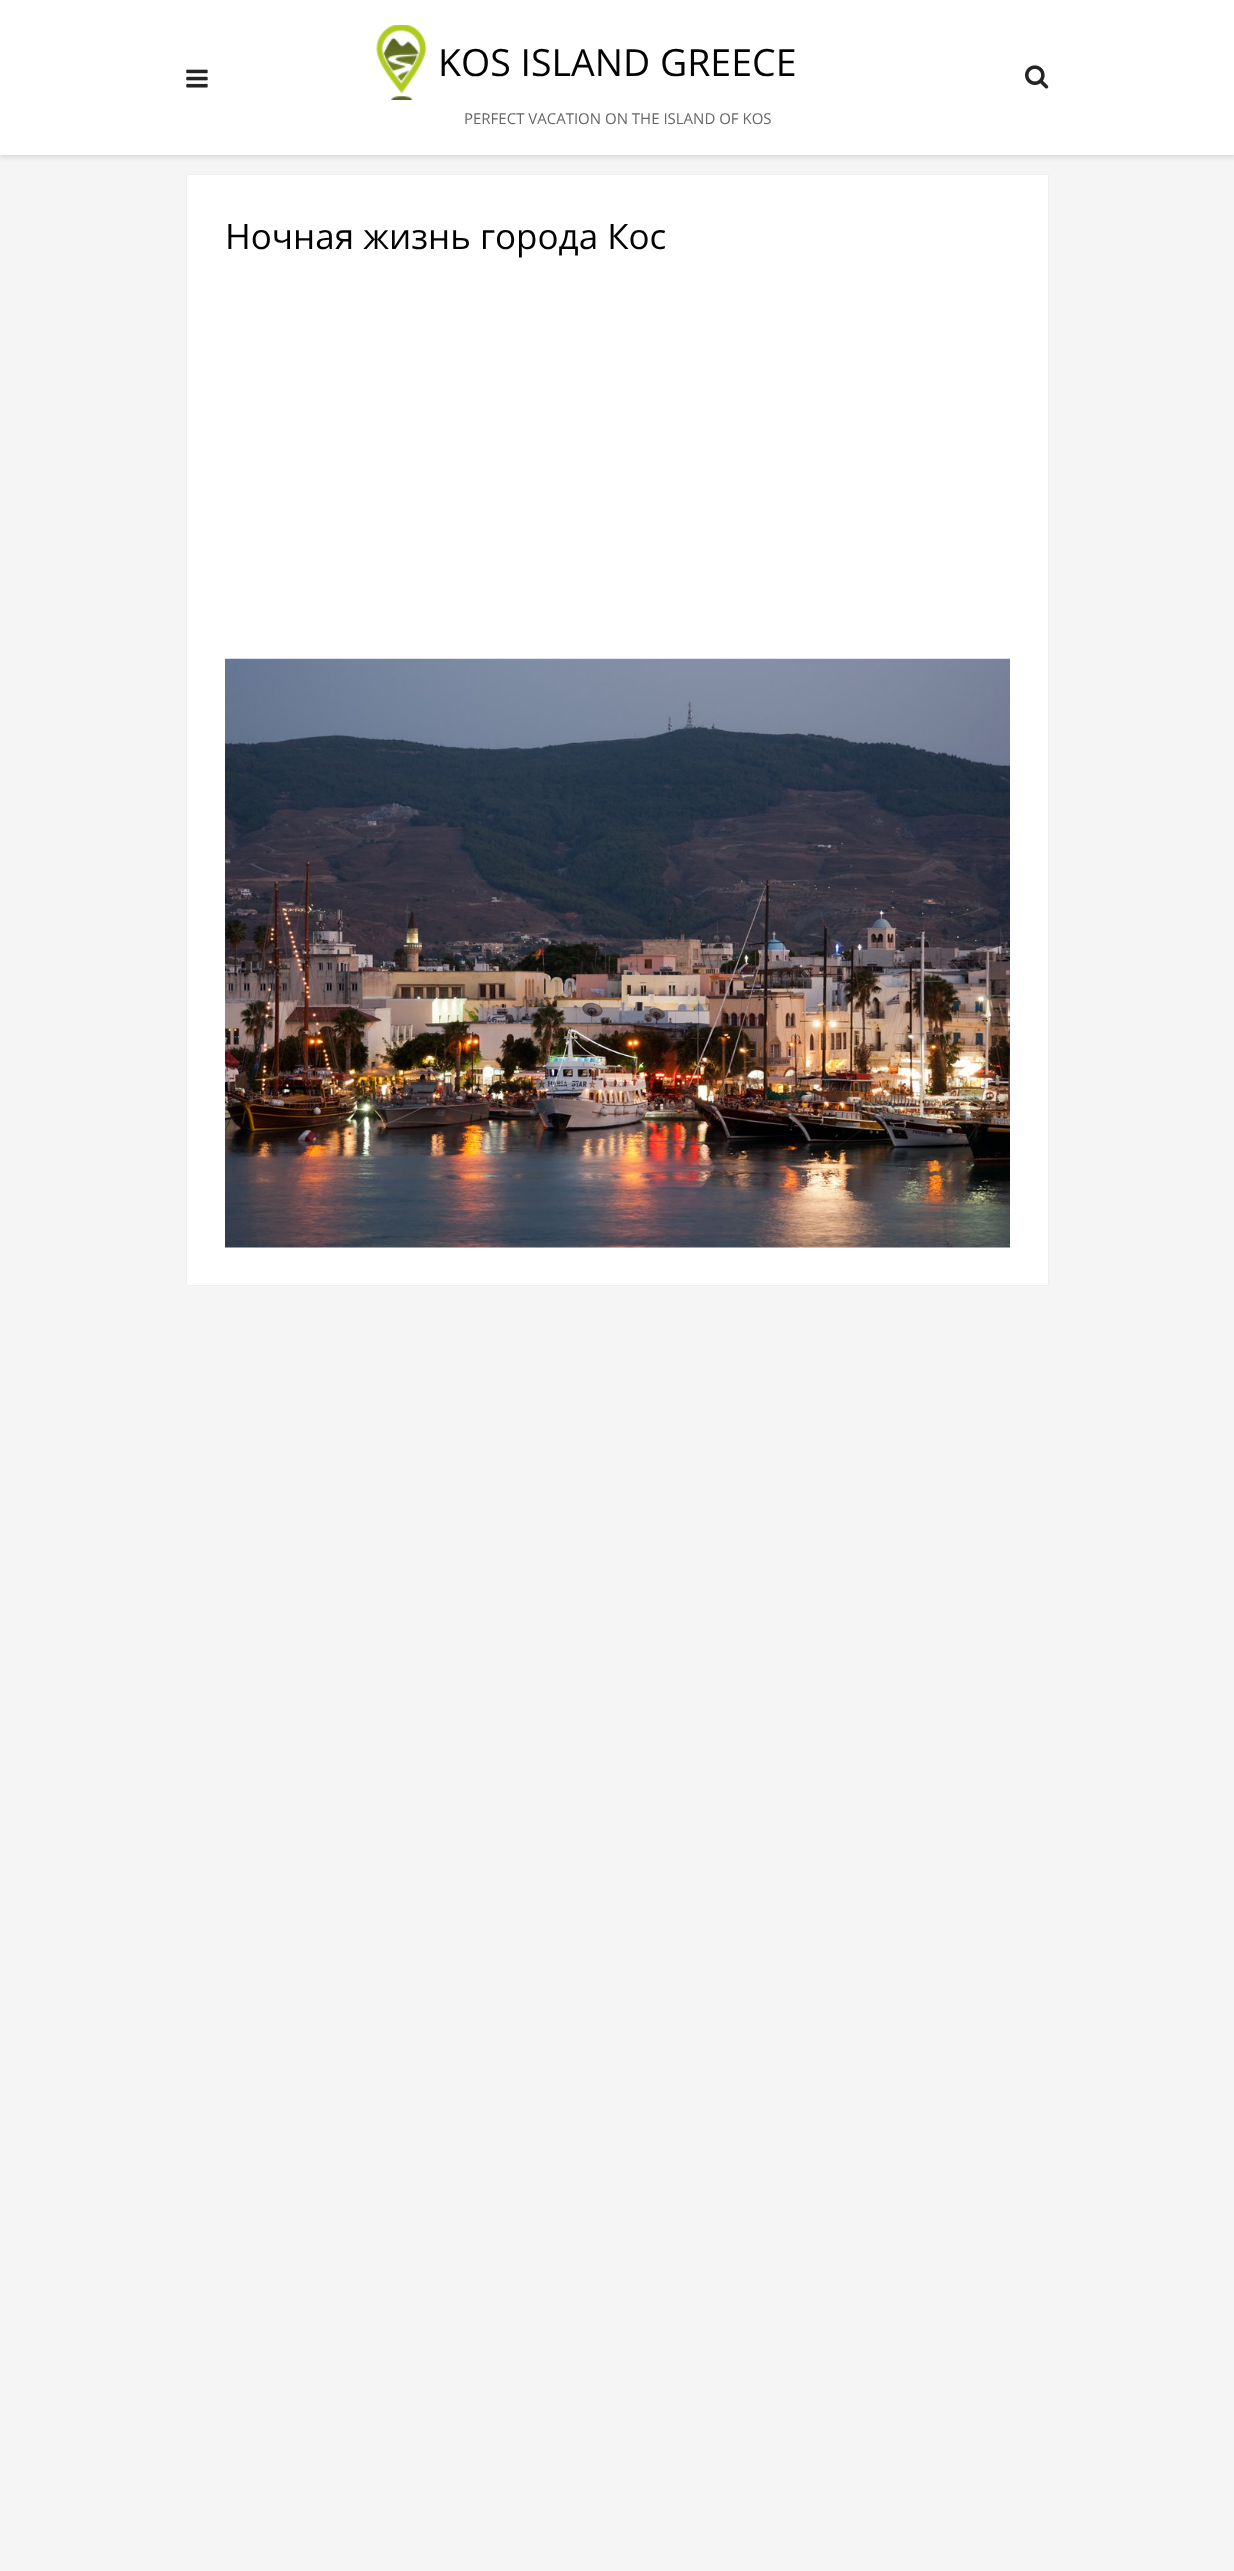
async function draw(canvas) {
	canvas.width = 1234;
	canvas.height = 2571;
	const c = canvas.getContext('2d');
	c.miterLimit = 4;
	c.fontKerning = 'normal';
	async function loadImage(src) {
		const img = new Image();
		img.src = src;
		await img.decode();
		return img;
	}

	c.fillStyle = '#f5f5f5';
	c.fillRect(0, 0, 1234, 2571);
	c.fillStyle = '#0000001a';
	c.filter = 'blur(2px)';
	c.beginPath();
	c.rect(0, 3, 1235, 155);
	c.fill();
	c.filter = 'none';
	c.fillStyle = '#fff';
	c.fillRect(0, 0, 1234, 155);
	c.drawImage(await loadImage('img1.png'), 186, 69, 22, 19);
	c.drawImage(await loadImage('img2.png'), 376, 25, 51, 75);
	c.font = '37.5px Open Sans';
	c.fillStyle = '#020202';
	c.fillText('KOS ISLAND GREECE', 438, 76);
	c.font = '15px Open Sans';
	c.fillStyle = '#666';
	c.fillText('PERFECT VACATION ON THE ISLAND OF KOS', 464, 124);
	c.drawImage(await loadImage('img3.png'), 1025, 65, 24, 24);
	c.fillStyle = '#fff';
	c.beginPath();
	c.rect(186.5, 174.5, 862, 1111);
	c.fill();
	c.strokeStyle = '#eee';
	c.stroke();
	c.font = '35px Open Sans';
	c.fillStyle = '#020202';
	c.fillText('Ночная жизнь города Кос', 225, 249);
	c.drawImage(await loadImage('img4.png'), 225, 658, 785, 590);
}

draw(document.querySelector('canvas'));
